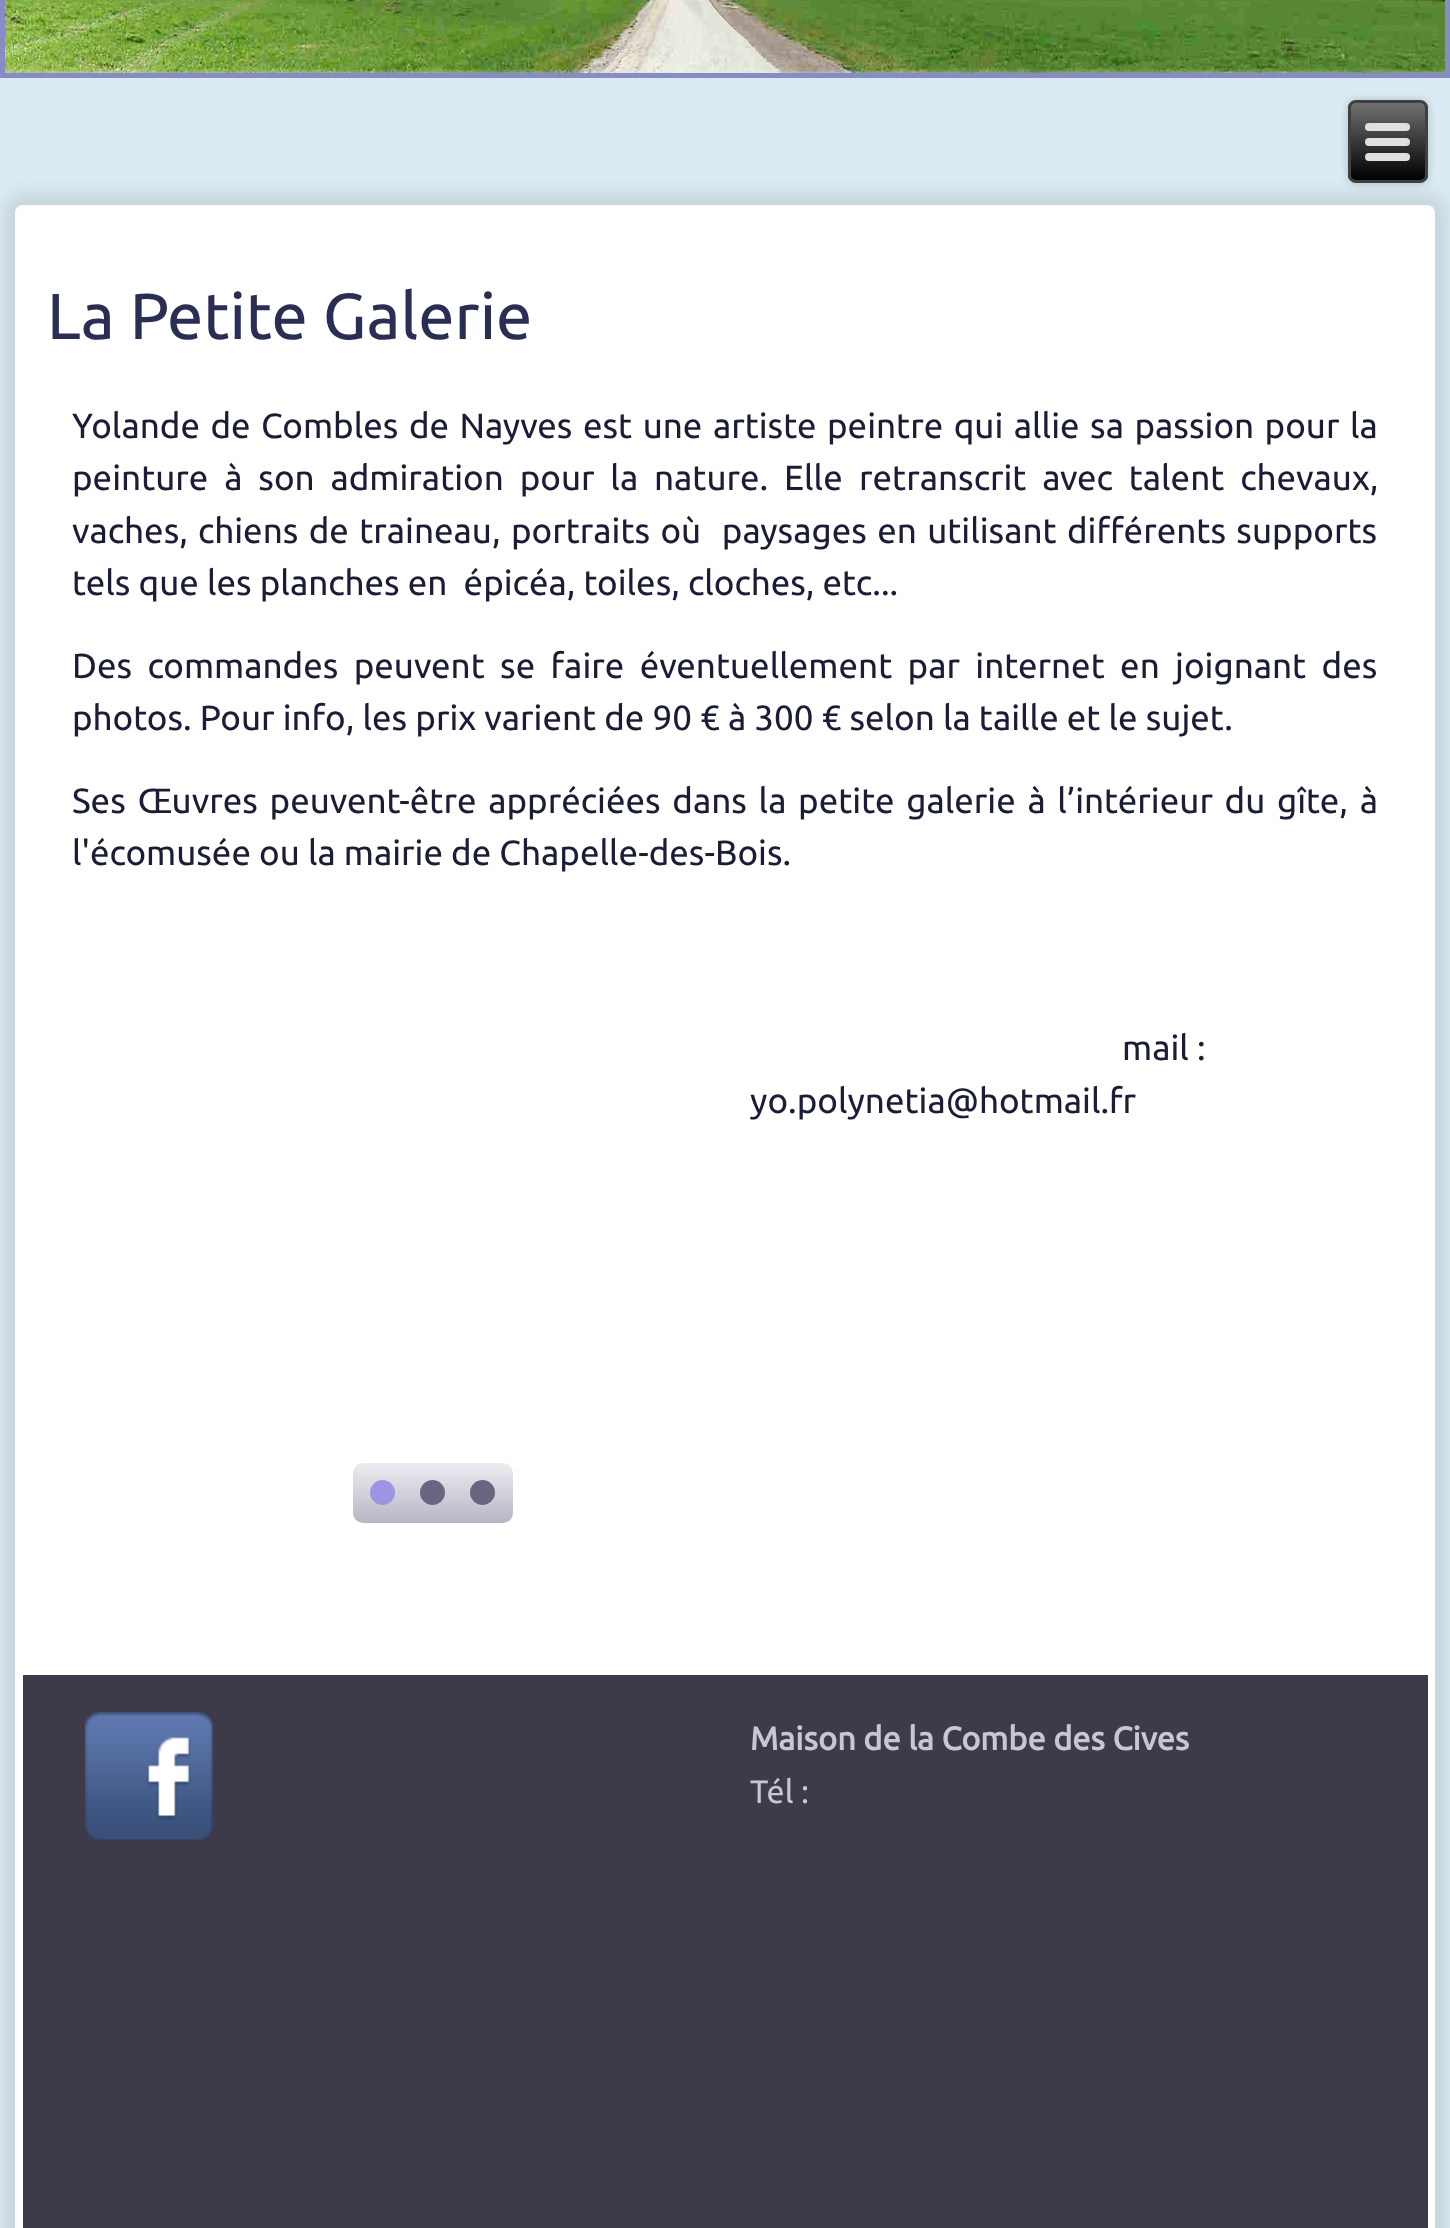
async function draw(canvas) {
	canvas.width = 1450;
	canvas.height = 2228;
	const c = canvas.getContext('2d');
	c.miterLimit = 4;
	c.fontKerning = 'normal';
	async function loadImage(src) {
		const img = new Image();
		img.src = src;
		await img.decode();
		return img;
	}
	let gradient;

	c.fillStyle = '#dbebf3';
	c.fillRect(0, 0, 1450, 2228);
	c.drawImage(await loadImage('img1.png'), 5, 0, 1440, 73);
	c.strokeStyle = '#878cc4';
	c.lineWidth = 5;
	c.strokeRect(2.5, -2.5, 1445, 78);
	c.fillStyle = '#00000033';
	c.filter = 'blur(4px)';
	c.beginPath();
	c.roundRect(1348, 100, 80, 83, 8);
	c.fill();
	c.filter = 'none';
	c.fillStyle = '#0000001a';
	c.filter = 'blur(9px)';
	c.beginPath();
	c.roundRect(5, 195, 1440, 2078, 18);
	c.fill();
	c.filter = 'none';
	c.save();
	c.beginPath();
	c.roundRect(1348, 100, 80, 83, 8);
	c.clip();
	gradient = c.createLinearGradient(1388, 103, 1388, 180);
	gradient.addColorStop(0, '#707070');
	gradient.addColorStop(1, '#000');
	c.fillStyle = gradient;
	c.fillRect(1348, 103, 80, 77);
	c.restore();
	c.beginPath();
	c.roundRect(1349.5, 101.5, 77, 80, 6.5);
	c.strokeStyle = '#404040';
	c.lineWidth = 3;
	c.stroke();
	c.fillStyle = '#e0e0e0';
	c.beginPath();
	c.roundRect(1365, 123, 45, 8, 4);
	c.fill();
	c.beginPath();
	c.roundRect(1365, 138, 45, 8, 4);
	c.fill();
	c.beginPath();
	c.roundRect(1365, 153, 45, 8, 4);
	c.fill();
	c.fillStyle = '#fff';
	c.beginPath();
	c.roundRect(15, 205, 1420, 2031, 8);
	c.fill();
	c.font = '65px Ubuntu';
	c.fillStyle = '#2a2e55';
	c.fillText('La Petite Galerie', 47, 339);
	c.wordSpacing = '2.4px';
	c.font = '35px Ubuntu';
	c.fillStyle = '#1b1d37';
	c.fillText('Yolande de Combles de Nayves est une artiste peintre qui allie sa passion pour la', 72, 438);
	c.wordSpacing = '7.75px';
	c.fillText('peinture à son admiration pour la nature. Elle', 72, 490);
	c.fillText('retranscrit avec talent chevaux,', 859, 490);
	c.wordSpacing = '0px';
	c.fillText('vaches,', 72, 543);
	c.wordSpacing = '2.25px';
	c.fillText('chiens de traineau, portraits où  paysages en utilisant différents supports', 198, 543);
	c.wordSpacing = '0px';
	c.fillText('tels que les planches en  épicéa, toiles, cloches, etc...', 72, 595);
	c.wordSpacing = '7.25px';
	c.fillText('Des commandes peuvent se faire éventuellement par internet en joignant des', 72, 678);
	c.wordSpacing = '0px';
	c.fillText('photos. Pour info, les prix varient de 90 € à 300 € selon la taille et le sujet.', 72, 730);
	c.wordSpacing = '3.6px';
	c.fillText('Ses Œuvres peuvent-être appréciées dans la petite galerie à l’intérieur du gîte, à', 72, 813);
	c.wordSpacing = '0px';
	for (const [text, x, y] of [
		['l\'écomusée ou la mairie de Chapelle-des-Bois.', 72, 865],
		['mail :', 1122, 1060],
		['yo.polynetia@hotmail.fr', 750, 1113],
	]) {
		c.fillText(text, x, y);
	}
	gradient = c.createLinearGradient(433, 1463, 433, 1523);
	gradient.addColorStop(0, '#edecf0');
	gradient.addColorStop(1, '#b8b5c5');
	c.fillStyle = gradient;
	c.beginPath();
	c.roundRect(353, 1463, 160, 60, 10);
	c.fill();
	c.fillStyle = '#9d95e4';
	c.beginPath();
	c.arc(382.5, 1492.5, 12.5, 0, 2 * Math.PI);
	c.fill();
	c.fillStyle = '#696581';
	c.beginPath();
	c.arc(432.5, 1492.5, 12.5, 0, 2 * Math.PI);
	c.fill();
	c.beginPath();
	c.arc(482.5, 1492.5, 12.5, 0, 2 * Math.PI);
	c.fill();
	c.fillStyle = '#3d3a4a';
	c.fillRect(23, 1675, 1405, 553);
	c.drawImage(await loadImage('img2.png'), 85, 1712, 128, 128);
	c.font = 'bold 32.5px Ubuntu';
	c.fillStyle = '#c8c6d2';
	c.fillText('Maison de la Combe des Cives', 750, 1750);
	c.font = '32.5px Ubuntu';
	c.fillText('Tél :', 750, 1803);
}

draw(document.querySelector('canvas'));
